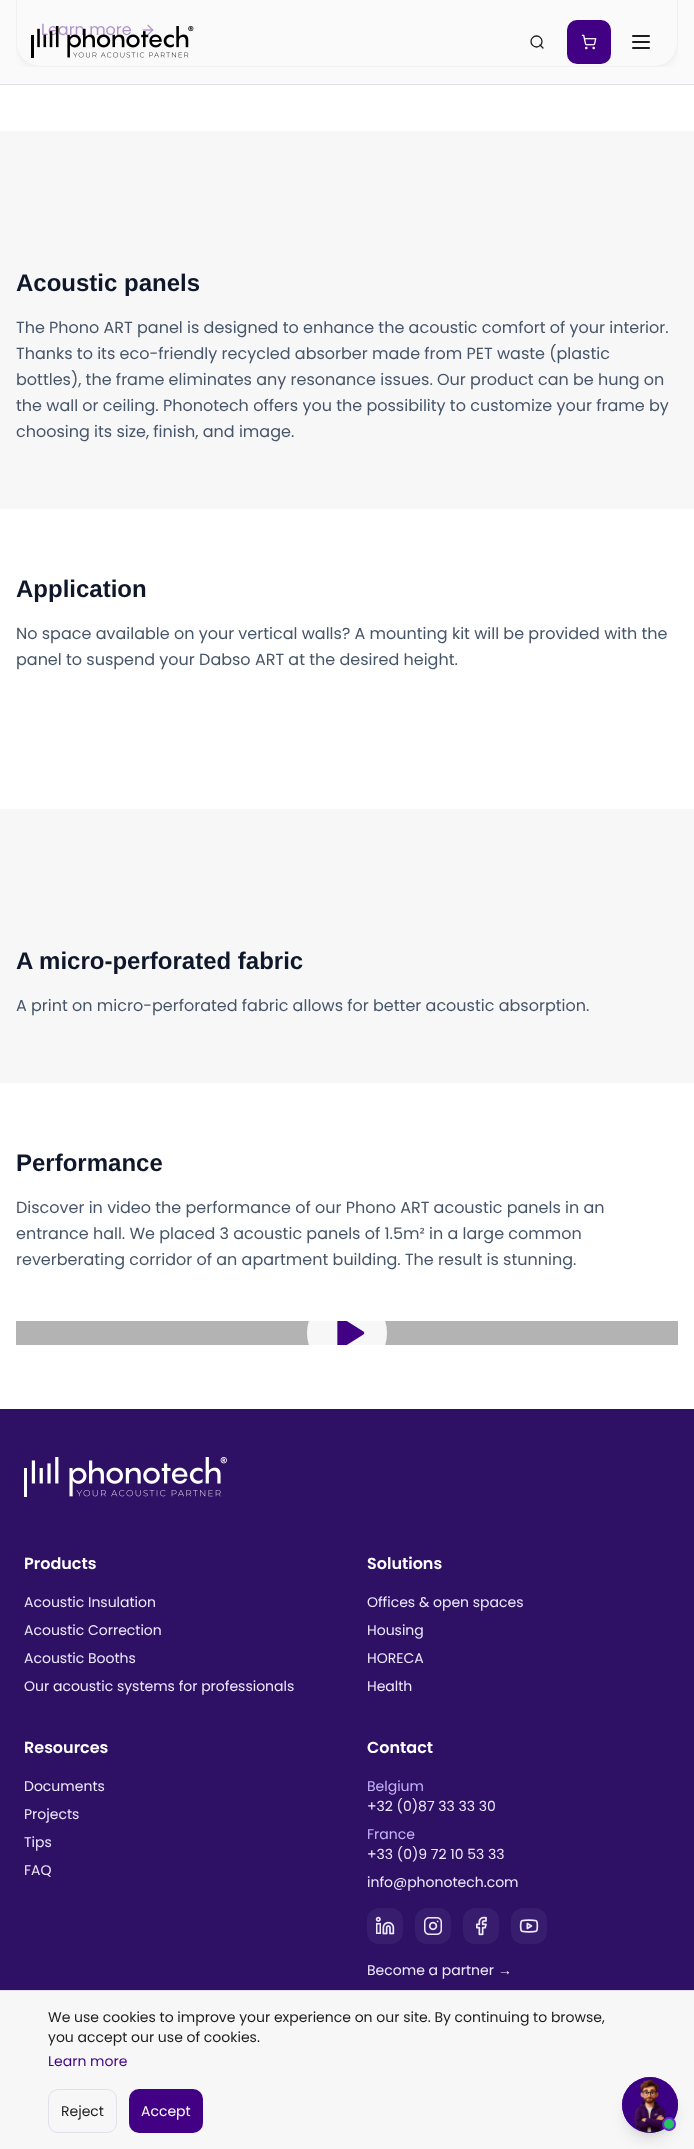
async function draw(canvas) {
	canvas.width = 694;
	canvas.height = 2149;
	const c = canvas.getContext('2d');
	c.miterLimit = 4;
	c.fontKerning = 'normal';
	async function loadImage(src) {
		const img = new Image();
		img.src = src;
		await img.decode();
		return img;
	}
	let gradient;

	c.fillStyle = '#f7f7f8';
	c.fillRect(0, 0, 694, 2149);
	c.fillStyle = '#e4e0eb';
	c.fillRect(0, 84, 694, 1);
	c.fillStyle = '#fafafb';
	c.fillRect(0, 0, 694, 84);
	c.save();
	c.beginPath();
	c.rect(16, 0, 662, 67);
	c.clip();
	c.fillStyle = '#9494951a';
	c.filter = 'blur(3px)';
	c.beginPath();
	c.roundRect(17, -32, 660, 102, 23);
	c.fill();
	c.filter = 'none';
	c.restore();
	c.beginPath();
	c.roundRect(16.5, -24.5, 661, 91, 23.5);
	c.fill();
	c.strokeStyle = '#eff1f5';
	c.stroke();
	c.font = '16px Poppins';
	c.fillStyle = '#af94ca';
	c.fillText('Learn more', 41, 35);
	c.drawImage(await loadImage('img4.png'), 142, 24, 12, 12);
	c.drawImage(await loadImage('img1.png'), 31, 26, 163, 32);
	c.beginPath();
	c.arc(536.5, 41.5, 5.5, 0, 2 * Math.PI);
	c.strokeStyle = '#1c1c1c';
	c.lineWidth = 1.3;
	c.stroke();
	c.beginPath();
	c.moveTo(543, 48);
	c.lineTo(540, 45);
	c.lineCap = 'round';
	c.lineJoin = 'round';
	c.stroke();
	c.fillStyle = '#420085';
	c.beginPath();
	c.roundRect(567, 20, 44, 44, 10);
	c.fill();
	c.drawImage(await loadImage('img2.png'), 581, 34, 16, 16);
	c.drawImage(await loadImage('img3.png'), 632, 35, 18, 14);
	c.fillStyle = '#fff';
	c.fillRect(0, 85, 694, 46);
	c.font = 'bold 24px Liberation Sans';
	c.fillStyle = '#0f172a';
	c.fillText('Acoustic panels', 16, 291);
	c.font = '16px Poppins';
	c.fillStyle = '#475569';
	for (const [text, x, y] of [
		['The Phono ART panel is designed to enhance the acoustic comfort of your interior.', 16, 333],
		['Thanks to its eco-friendly recycled absorber made from PET waste (plastic', 16, 359],
		['bottles), the frame eliminates any resonance issues. Our product can be hung on', 16, 385],
		['the wall or ceiling. Phonotech offers you the possibility to customize your frame by', 16, 411],
		['choosing its size, finish, and image.', 16, 437],
	]) {
		c.fillText(text, x, y);
	}
	c.fillStyle = '#fff';
	c.fillRect(0, 509, 694, 300);
	c.font = 'bold 24px Liberation Sans';
	c.fillStyle = '#0f172a';
	c.fillText('Application', 16, 597);
	c.font = '16px Poppins';
	c.fillStyle = '#475569';
	c.fillText('No space available on your vertical walls? A mounting kit will be provided with the', 16, 639);
	c.fillText('panel to suspend your Dabso ART at the desired height.', 16, 665);
	c.font = 'bold 24px Liberation Sans';
	c.fillStyle = '#0f172a';
	c.fillText('A micro-perforated fabric', 16, 969);
	c.font = '16px Poppins';
	c.fillStyle = '#475569';
	c.fillText('A print on micro-perforated fabric allows for better acoustic absorption.', 16, 1011);
	c.fillStyle = '#fff';
	c.fillRect(0, 1083, 694, 326);
	c.font = 'bold 24px Liberation Sans';
	c.fillStyle = '#0f172a';
	c.fillText('Performance', 16, 1171);
	c.font = '16px Poppins';
	c.fillStyle = '#475569';
	for (const [text, x, y] of [
		['Discover in video the performance of our Phono ART acoustic panels in an', 16, 1213],
		['entrance hall. We placed 3 acoustic panels of 1.5m² in a large common', 16, 1239],
		['reverberating corridor of an apartment building. The result is stunning.', 16, 1265],
	]) {
		c.fillText(text, x, y);
	}
	c.fillStyle = '#b3b3b3';
	c.fillRect(16, 1321, 662, 24);
	c.save();
	c.beginPath();
	c.rect(16, 1321, 662, 24);
	c.clip();
	c.fillStyle = '#f7f7f7';
	c.beginPath();
	c.arc(347, 1333, 40, 0, 2 * Math.PI);
	c.fill();
	c.restore();
	c.save();
	c.beginPath();
	c.rect(329, 1321, 40, 24);
	c.clip();
	c.fillStyle = '#420085';
	c.beginPath();
	c.moveTo(339, 1318);
	c.lineTo(362.5, 1333);
	c.lineTo(339, 1348);
	c.closePath();
	c.fill();
	c.strokeStyle = '#420085';
	c.lineWidth = 3.3;
	c.stroke();
	c.restore();
	c.fillStyle = '#2e1065';
	c.fillRect(0, 1409, 694, 581);
	c.drawImage(await loadImage('img5.png'), 24, 1457, 203, 40);
	c.font = '600 16px Poppins';
	c.fillStyle = '#fff';
	c.fillText('Products', 24, 1569);
	c.font = '14px Poppins';
	c.fillStyle = '#ede9fe';
	for (const [text, x, y] of [
		['Acoustic Insulation', 24, 1607],
		['Acoustic Correction', 24, 1635],
		['Acoustic Booths', 24, 1663],
		['Our acoustic systems for professionals', 24, 1691],
	]) {
		c.fillText(text, x, y);
	}
	c.font = '600 16px Poppins';
	c.fillStyle = '#fff';
	c.fillText('Solutions', 367, 1569);
	c.font = '14px Poppins';
	c.fillStyle = '#ede9fe';
	for (const [text, x, y] of [
		['Offices & open spaces', 367, 1607],
		['Housing', 367, 1635],
		['HORECA', 367, 1663],
		['Health', 367, 1691],
	]) {
		c.fillText(text, x, y);
	}
	c.font = '600 16px Poppins';
	c.fillStyle = '#fff';
	c.fillText('Resources', 24, 1753);
	c.font = '14px Poppins';
	c.fillStyle = '#ede9fe';
	for (const [text, x, y] of [
		['Documents', 24, 1791],
		['Projects', 24, 1819],
		['Tips', 24, 1847],
		['FAQ', 24, 1875],
	]) {
		c.fillText(text, x, y);
	}
	c.font = '600 16px Poppins';
	c.fillStyle = '#fff';
	c.fillText('Contact', 367, 1753);
	c.font = '14px Poppins';
	c.fillStyle = '#c4b5fd';
	c.fillText('Belgium', 367, 1791);
	c.fillStyle = '#ede9fe';
	c.fillText('+32 (0)87 33 33 30', 367, 1811);
	c.fillStyle = '#c4b5fd';
	c.fillText('France', 367, 1839);
	c.fillStyle = '#ede9fe';
	c.fillText('+33 (0)9 72 10 53 33', 367, 1859);
	c.fillText('info@phonotech.com', 367, 1887);
	c.fillStyle = '#381c6d';
	c.beginPath();
	c.roundRect(367, 1908, 36, 36, 12);
	c.fill();
	c.drawImage(await loadImage('img6.png'), 375, 1916, 20, 19);
	c.beginPath();
	c.roundRect(415, 1908, 36, 36, 12);
	c.fill();
	c.drawImage(await loadImage('img7.png'), 424, 1917, 18, 18);
	c.beginPath();
	c.roundRect(463, 1908, 36, 36, 12);
	c.fill();
	c.drawImage(await loadImage('img8.png'), 476, 1916, 11, 20);
	c.beginPath();
	c.roundRect(511, 1908, 36, 36, 12);
	c.fill();
	c.drawImage(await loadImage('img9.png'), 519, 1919, 20, 14);
	c.fillStyle = '#ede9fe';
	c.fillText('Become a partner', 367, 1975);
	c.font = '14px Liberation Sans';
	c.fillText('→', 498, 1975);
	c.fillStyle = '#e4e0eb';
	c.fillRect(0, 1990, 694, 1);
	c.font = '14px Poppins';
	c.fillStyle = '#1c1c1c';
	c.fillText('We use cookies to improve your experience on our site. By continuing to browse,', 48, 2022);
	c.fillText('you accept our use of cookies.', 48, 2042);
	c.fillStyle = '#420085';
	c.fillText('Learn more', 48, 2066);
	c.beginPath();
	c.roundRect(48.5, 2089.5, 68, 43, 9.5);
	c.strokeStyle = '#e4e0eb';
	c.lineWidth = 1;
	c.lineJoin = 'miter';
	c.stroke();
	c.fillStyle = '#1c1c1c';
	c.fillText('Reject', 61, 2116);
	c.fillStyle = '#420085';
	c.beginPath();
	c.roundRect(129, 2089, 74, 44, 10);
	c.fill();
	c.fillStyle = '#fff';
	c.fillText('Accept', 141, 2116);
	c.fillStyle = '#0000001a';
	c.filter = 'blur(3px)';
	c.beginPath();
	c.roundRect(626, 2085, 48, 48, 24);
	c.fill();
	c.filter = 'none';
	c.filter = 'blur(7.5px)';
	c.beginPath();
	c.roundRect(625, 2090, 50, 50, 25);
	c.fill();
	c.filter = 'none';
	gradient = c.createLinearGradient(622, 2077, 678, 2133);
	gradient.addColorStop(0, '#7c3aed');
	gradient.addColorStop(0.5, '#6d28d9');
	gradient.addColorStop(1, '#5b21b6');
	c.fillStyle = gradient;
	c.beginPath();
	c.arc(650, 2105, 28, 0, 2 * Math.PI);
	c.fill();
	c.drawImage(await loadImage('img10.png'), 622, 2077, 56, 56);
	c.fillStyle = '#22c55e';
	c.beginPath();
	c.arc(669, 2124, 6, 0, 2 * Math.PI);
	c.fill();
	c.strokeStyle = '#6d28d9';
	c.lineWidth = 2;
	c.stroke();
}

draw(document.querySelector('canvas'));
